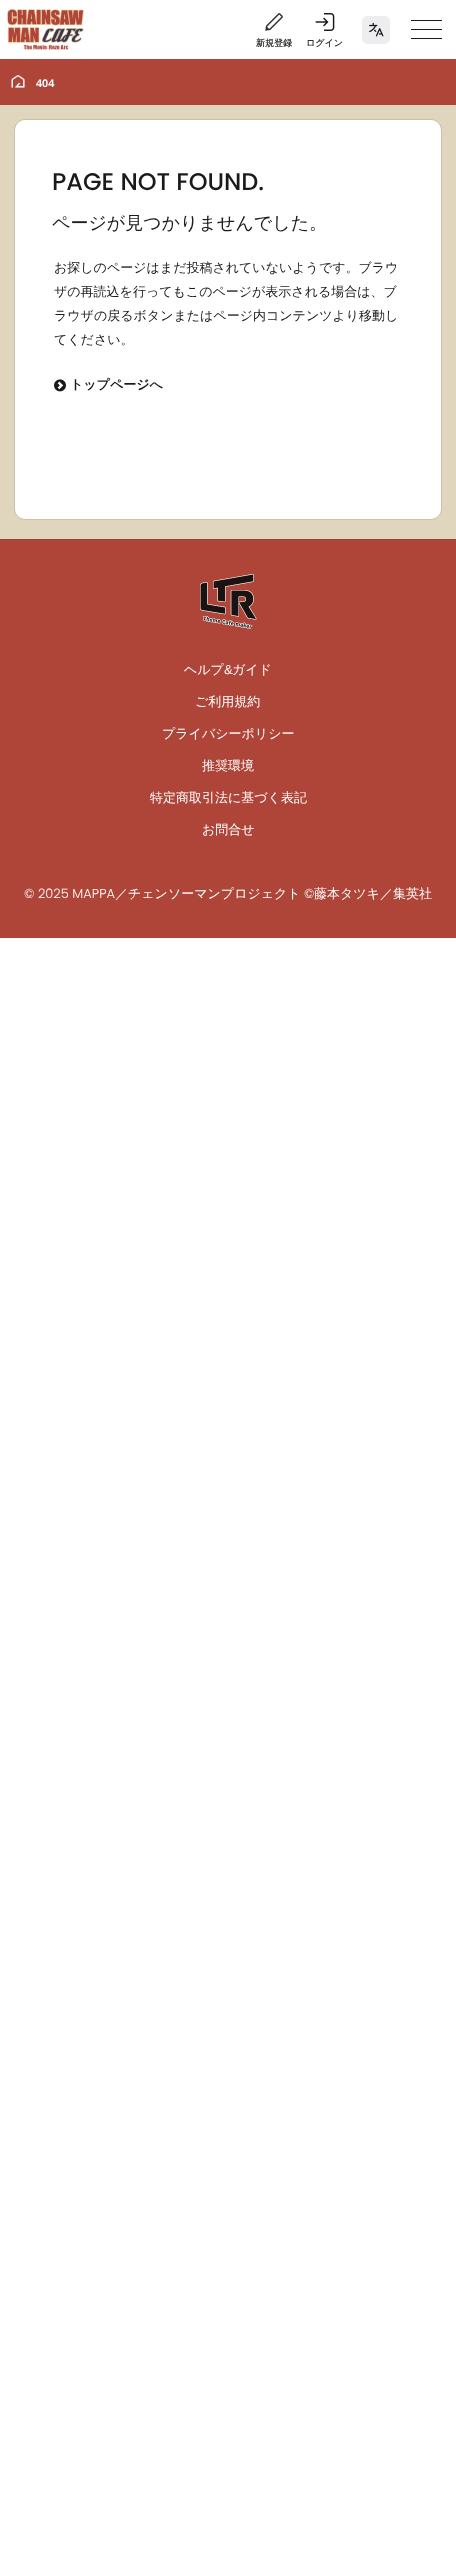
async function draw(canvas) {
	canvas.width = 456;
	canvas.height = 2549;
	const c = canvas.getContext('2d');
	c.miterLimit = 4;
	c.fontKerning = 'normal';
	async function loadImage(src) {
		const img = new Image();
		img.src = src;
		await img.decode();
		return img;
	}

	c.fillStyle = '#fff';
	c.fillRect(0, 0, 456, 2549);
	c.drawImage(await loadImage('img1.png'), 7, 9, 77, 41);
	for (const [x, y, w, h, color] of [
		[411, 20, 31, 1, '#1a1a1a'],
		[411, 29, 31, 1, '#1a1a1a'],
		[411, 38, 31, 1, '#1a1a1a'],
	]) {
		c.fillStyle = color;
		c.fillRect(x, y, w, h);
	}
	c.drawImage(await loadImage('img2.png'), 265, 13, 18, 18);
	c.font = 'bold 9px WenQuanYi Zen Hei';
	c.fillStyle = '#313035';
	c.fillText('新規登録', 256, 46);
	c.drawImage(await loadImage('img3.png'), 315, 13, 20, 18);
	c.fillText('ログイン', 306, 46);
	c.drawImage(await loadImage('img4.png'), 362, 16, 28, 28);
	c.fillStyle = '#af4538';
	c.fillRect(0, 59, 456, 46);
	c.drawImage(await loadImage('img5.png'), 11, 75, 14, 13);
	c.font = 'bold 11px Liberation Sans';
	c.fillStyle = '#fff';
	c.fillText('404', 36, 87);
	c.fillStyle = '#e0d6bd';
	c.fillRect(0, 105, 456, 434);
	c.beginPath();
	c.roundRect(14.5, 119.5, 427, 400, 10.5);
	c.strokeStyle = '#cac1aa';
	c.stroke();
	c.fillStyle = '#fff';
	c.beginPath();
	c.roundRect(15, 120, 426, 399, 10);
	c.fill();
	c.font = '500 24px Poppins';
	c.fillStyle = '#1a1a1a';
	c.fillText('PAGE NOT FOUND.', 52, 190);
	c.font = '500 18px WenQuanYi Zen Hei';
	c.fillText('ページが見つかりませんでした。', 52, 229);
	c.font = '500 13px WenQuanYi Zen Hei';
	for (const [text, x, y] of [
		['お探しのページはまだ投稿されていないようです。ブラウ', 54, 272],
		['ザの再読込を行ってもこのページが表示される場合は、ブ', 54, 296],
		['ラウザの戻るボタンまたはページ内コンテンツより移動し', 54, 320],
		['てください。', 54, 344],
	]) {
		c.fillText(text, x, y);
	}
	c.drawImage(await loadImage('img6.png'), 54, 379, 12, 13);
	c.font = 'bold 13px WenQuanYi Zen Hei';
	c.fillText('トップページへ', 70, 389);
	c.fillStyle = '#af4538';
	c.fillRect(0, 540, 456, 398);
	c.fillStyle = '#a13f34';
	c.fillRect(0, 539, 456, 1);
	c.drawImage(await loadImage('img7.png'), 200, 574, 57, 55);
	c.font = '500 13px WenQuanYi Zen Hei';
	c.fillStyle = '#fff';
	c.fillText('ヘルプ', 184, 674);
	c.font = '13px Liberation Sans';
	c.fillText('&', 224, 674);
	c.font = '500 13px WenQuanYi Zen Hei';
	for (const [text, x, y] of [
		['ガイド', 232, 674],
		['ご利用規約', 195, 706],
		['プライバシーポリシー', 162, 738],
		['推奨環境', 202, 770],
		['特定商取引法に基づく表記', 150, 802],
		['お問合せ', 202, 834],
	]) {
		c.fillText(text, x, y);
	}
	c.font = '300 13px Poppins';
	c.fillText('© 2025 MAPPA', 24, 898);
	c.font = '500 13px WenQuanYi Zen Hei';
	c.fillText('／チェンソーマンプロジェクト', 115, 898);
	c.font = '300 13px Poppins';
	c.fillText('©', 304, 898);
	c.font = '500 13px WenQuanYi Zen Hei';
	c.fillText('藤本タツキ／集英社', 314, 898);
}

draw(document.querySelector('canvas'));
